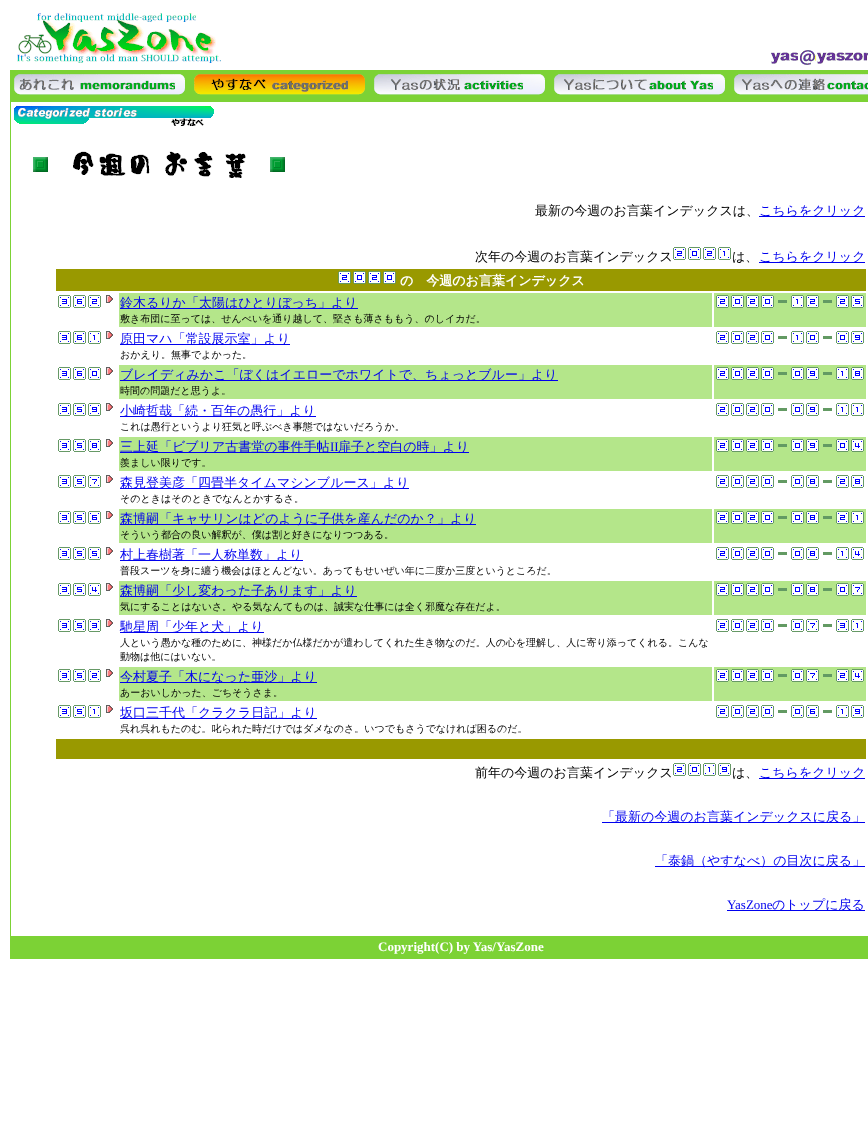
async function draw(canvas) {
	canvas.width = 868;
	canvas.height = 1123;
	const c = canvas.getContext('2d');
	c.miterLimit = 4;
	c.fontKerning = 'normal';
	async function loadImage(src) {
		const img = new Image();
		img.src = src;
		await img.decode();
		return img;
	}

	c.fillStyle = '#fff';
	c.fillRect(0, 0, 868, 1123);
	c.drawImage(await loadImage('img1.png'), 17, 12, 204, 51);
	c.drawImage(await loadImage('img2.png'), 771, 52, 27, 12);
	c.drawImage(await loadImage('img3.png'), 800, 50, 16, 15);
	c.drawImage(await loadImage('img4.png'), 817, 52, 51, 12);
	c.fillStyle = '#7cd235';
	c.fillRect(10, 70, 858, 889);
	c.drawImage(await loadImage('img5.png'), 14, 74, 171, 21);
	c.drawImage(await loadImage('img6.png'), 194, 74, 171, 21);
	c.drawImage(await loadImage('img7.png'), 374, 74, 171, 21);
	c.drawImage(await loadImage('img8.png'), 554, 74, 171, 21);
	c.drawImage(await loadImage('img9.png'), 734, 74, 134, 21);
	c.fillStyle = '#fff';
	c.fillRect(11, 102, 857, 834);
	c.drawImage(await loadImage('img10.png'), 14, 105, 200, 21);
	c.drawImage(await loadImage('img11.png'), 33, 157, 15, 15);
	c.drawImage(await loadImage('img12.png'), 73, 151, 173, 27);
	c.drawImage(await loadImage('img11.png'), 270, 157, 15, 15);
	c.font = '500 13px WenQuanYi Zen Hei';
	c.fillStyle = '#000';
	c.fillText('最新の今週のお言葉インデックスは、', 535, 215);
	c.fillStyle = '#00e';
	c.fillRect(759, 216, 106, 1);
	c.fillText('こちらをクリック', 759, 215);
	c.fillStyle = '#000';
	c.fillText('次年の今週のお言葉インデックス', 475, 261);
	c.drawImage(await loadImage('img13.png'), 673, 247, 13, 13);
	c.drawImage(await loadImage('img14.png'), 688, 247, 13, 13);
	c.drawImage(await loadImage('img13.png'), 703, 247, 13, 13);
	c.drawImage(await loadImage('img15.png'), 718, 247, 13, 13);
	c.fillText('は、', 732, 261);
	c.fillStyle = '#00e';
	c.fillRect(759, 262, 106, 1);
	c.fillText('こちらをクリック', 759, 261);
	c.fillStyle = '#990';
	c.fillRect(56, 269, 810, 22);
	c.drawImage(await loadImage('img16.png'), 338, 271, 13, 13);
	c.drawImage(await loadImage('img17.png'), 353, 271, 13, 13);
	c.drawImage(await loadImage('img16.png'), 368, 271, 13, 13);
	c.drawImage(await loadImage('img17.png'), 383, 271, 13, 13);
	c.font = 'bold 13px WenQuanYi Zen Hei';
	c.fillStyle = '#fff';
	c.fillText('の　今週のお言葉インデックス', 400, 285);
	c.drawImage(await loadImage('img18.png'), 58, 295, 13, 13);
	c.drawImage(await loadImage('img19.png'), 73, 295, 13, 13);
	c.drawImage(await loadImage('img13.png'), 88, 295, 13, 13);
	c.drawImage(await loadImage('img20.png'), 106, 295, 7, 8);
	c.fillStyle = '#b4e68a';
	c.fillRect(119, 293, 593, 34);
	c.fillStyle = '#00e';
	c.fillRect(120, 308, 238, 1);
	c.font = '500 13px WenQuanYi Zen Hei';
	c.fillText('鈴木るりか「太陽はひとりぼっち」より', 120, 307);
	c.font = '500 10px WenQuanYi Zen Hei';
	c.fillStyle = '#000';
	c.fillText('敷き布団に至っては、せんべいを通り越して、堅さも薄さももう、のしイカだ。', 120, 322);
	c.fillStyle = '#b4e68a';
	c.fillRect(714, 293, 152, 34);
	c.drawImage(await loadImage('img21.png'), 716, 295, 13, 13);
	c.drawImage(await loadImage('img22.png'), 731, 295, 13, 13);
	c.drawImage(await loadImage('img21.png'), 746, 295, 13, 13);
	c.drawImage(await loadImage('img22.png'), 761, 295, 13, 13);
	c.fillStyle = '#639a63';
	c.fillRect(778, 300, 9, 3);
	c.drawImage(await loadImage('img23.png'), 791, 295, 13, 13);
	c.drawImage(await loadImage('img21.png'), 806, 295, 13, 13);
	c.fillRect(823, 300, 9, 3);
	c.drawImage(await loadImage('img21.png'), 836, 295, 13, 13);
	c.drawImage(await loadImage('img24.png'), 851, 295, 13, 13);
	c.drawImage(await loadImage('img18.png'), 58, 331, 13, 13);
	c.drawImage(await loadImage('img19.png'), 73, 331, 13, 13);
	c.drawImage(await loadImage('img15.png'), 88, 331, 13, 13);
	c.drawImage(await loadImage('img20.png'), 106, 331, 7, 8);
	c.fillStyle = '#00e';
	c.fillRect(120, 344, 170, 1);
	c.font = '500 13px WenQuanYi Zen Hei';
	c.fillText('原田マハ「常設展示室」より', 120, 343);
	c.font = '500 10px WenQuanYi Zen Hei';
	c.fillStyle = '#000';
	c.fillText('おかえり。無事でよかった。', 120, 358);
	c.drawImage(await loadImage('img13.png'), 716, 331, 13, 13);
	c.drawImage(await loadImage('img14.png'), 731, 331, 13, 13);
	c.drawImage(await loadImage('img13.png'), 746, 331, 13, 13);
	c.drawImage(await loadImage('img14.png'), 761, 331, 13, 13);
	c.fillStyle = '#639a63';
	c.fillRect(778, 336, 9, 3);
	c.drawImage(await loadImage('img15.png'), 791, 331, 13, 13);
	c.drawImage(await loadImage('img14.png'), 806, 331, 13, 13);
	c.fillRect(823, 336, 9, 3);
	c.drawImage(await loadImage('img14.png'), 836, 331, 13, 13);
	c.drawImage(await loadImage('img25.png'), 851, 331, 13, 13);
	c.drawImage(await loadImage('img18.png'), 58, 367, 13, 13);
	c.drawImage(await loadImage('img19.png'), 73, 367, 13, 13);
	c.drawImage(await loadImage('img14.png'), 88, 367, 13, 13);
	c.drawImage(await loadImage('img20.png'), 106, 367, 7, 8);
	c.fillStyle = '#b4e68a';
	c.fillRect(119, 365, 593, 34);
	c.fillStyle = '#00e';
	c.fillRect(120, 380, 438, 1);
	c.font = '500 13px WenQuanYi Zen Hei';
	c.fillText('ブレイディみかこ「ぼくはイエローでホワイトで、ちょっとブルー」より', 120, 379);
	c.font = '500 10px WenQuanYi Zen Hei';
	c.fillStyle = '#000';
	c.fillText('時間の問題だと思うよ。', 120, 394);
	c.fillStyle = '#b4e68a';
	c.fillRect(714, 365, 152, 34);
	c.drawImage(await loadImage('img21.png'), 716, 367, 13, 13);
	c.drawImage(await loadImage('img22.png'), 731, 367, 13, 13);
	c.drawImage(await loadImage('img21.png'), 746, 367, 13, 13);
	c.drawImage(await loadImage('img22.png'), 761, 367, 13, 13);
	c.fillStyle = '#639a63';
	c.fillRect(778, 372, 9, 3);
	c.drawImage(await loadImage('img22.png'), 791, 367, 13, 13);
	c.drawImage(await loadImage('img26.png'), 806, 367, 13, 13);
	c.fillRect(823, 372, 9, 3);
	c.drawImage(await loadImage('img23.png'), 836, 367, 13, 13);
	c.drawImage(await loadImage('img27.png'), 851, 367, 13, 13);
	c.drawImage(await loadImage('img18.png'), 58, 403, 13, 13);
	c.drawImage(await loadImage('img28.png'), 73, 403, 13, 13);
	c.drawImage(await loadImage('img25.png'), 88, 403, 13, 13);
	c.drawImage(await loadImage('img20.png'), 106, 403, 7, 8);
	c.fillStyle = '#00e';
	c.fillRect(120, 416, 196, 1);
	c.font = '500 13px WenQuanYi Zen Hei';
	c.fillText('小崎哲哉「続・百年の愚行」より', 120, 415);
	c.font = '500 10px WenQuanYi Zen Hei';
	c.fillStyle = '#000';
	c.fillText('これは愚行というより狂気と呼ぶべき事態ではないだろうか。', 120, 430);
	c.drawImage(await loadImage('img13.png'), 716, 403, 13, 13);
	c.drawImage(await loadImage('img14.png'), 731, 403, 13, 13);
	c.drawImage(await loadImage('img13.png'), 746, 403, 13, 13);
	c.drawImage(await loadImage('img14.png'), 761, 403, 13, 13);
	c.fillStyle = '#639a63';
	c.fillRect(778, 408, 9, 3);
	c.drawImage(await loadImage('img14.png'), 791, 403, 13, 13);
	c.drawImage(await loadImage('img25.png'), 806, 403, 13, 13);
	c.fillRect(823, 408, 9, 3);
	c.drawImage(await loadImage('img15.png'), 836, 403, 13, 13);
	c.drawImage(await loadImage('img15.png'), 851, 403, 13, 13);
	c.drawImage(await loadImage('img18.png'), 58, 439, 13, 13);
	c.drawImage(await loadImage('img28.png'), 73, 439, 13, 13);
	c.drawImage(await loadImage('img29.png'), 88, 439, 13, 13);
	c.drawImage(await loadImage('img20.png'), 106, 439, 7, 8);
	c.fillStyle = '#b4e68a';
	c.fillRect(119, 437, 593, 34);
	c.fillStyle = '#00e';
	c.fillRect(120, 452, 349, 1);
	c.font = '500 13px WenQuanYi Zen Hei';
	c.fillText('三上延「ビブリア古書堂の事件手帖', 120, 451);
	c.font = '13px Liberation Serif';
	c.fillText('II', 330, 451);
	c.font = '500 13px WenQuanYi Zen Hei';
	c.fillText('扉子と空白の時」より', 338, 451);
	c.font = '500 10px WenQuanYi Zen Hei';
	c.fillStyle = '#000';
	c.fillText('羨ましい限りです。', 120, 466);
	c.fillStyle = '#b4e68a';
	c.fillRect(714, 437, 152, 34);
	c.drawImage(await loadImage('img21.png'), 716, 439, 13, 13);
	c.drawImage(await loadImage('img22.png'), 731, 439, 13, 13);
	c.drawImage(await loadImage('img21.png'), 746, 439, 13, 13);
	c.drawImage(await loadImage('img22.png'), 761, 439, 13, 13);
	c.fillStyle = '#639a63';
	c.fillRect(778, 444, 9, 3);
	c.drawImage(await loadImage('img22.png'), 791, 439, 13, 13);
	c.drawImage(await loadImage('img26.png'), 806, 439, 13, 13);
	c.fillRect(823, 444, 9, 3);
	c.drawImage(await loadImage('img22.png'), 836, 439, 13, 13);
	c.drawImage(await loadImage('img30.png'), 851, 439, 13, 13);
	c.drawImage(await loadImage('img18.png'), 58, 475, 13, 13);
	c.drawImage(await loadImage('img28.png'), 73, 475, 13, 13);
	c.drawImage(await loadImage('img31.png'), 88, 475, 13, 13);
	c.drawImage(await loadImage('img20.png'), 106, 475, 7, 8);
	c.fillStyle = '#00e';
	c.fillRect(120, 488, 289, 1);
	c.font = '500 13px WenQuanYi Zen Hei';
	c.fillText('森見登美彦「四畳半タイムマシンブルース」より', 120, 487);
	c.font = '500 10px WenQuanYi Zen Hei';
	c.fillStyle = '#000';
	c.fillText('そのときはそのときでなんとかするさ。', 120, 502);
	c.drawImage(await loadImage('img13.png'), 716, 475, 13, 13);
	c.drawImage(await loadImage('img14.png'), 731, 475, 13, 13);
	c.drawImage(await loadImage('img13.png'), 746, 475, 13, 13);
	c.drawImage(await loadImage('img14.png'), 761, 475, 13, 13);
	c.fillStyle = '#639a63';
	c.fillRect(778, 480, 9, 3);
	c.drawImage(await loadImage('img14.png'), 791, 475, 13, 13);
	c.drawImage(await loadImage('img29.png'), 806, 475, 13, 13);
	c.fillRect(823, 480, 9, 3);
	c.drawImage(await loadImage('img13.png'), 836, 475, 13, 13);
	c.drawImage(await loadImage('img29.png'), 851, 475, 13, 13);
	c.drawImage(await loadImage('img18.png'), 58, 511, 13, 13);
	c.drawImage(await loadImage('img28.png'), 73, 511, 13, 13);
	c.drawImage(await loadImage('img19.png'), 88, 511, 13, 13);
	c.drawImage(await loadImage('img20.png'), 106, 511, 7, 8);
	c.fillStyle = '#b4e68a';
	c.fillRect(119, 509, 593, 34);
	c.fillStyle = '#00e';
	c.fillRect(120, 524, 356, 1);
	c.font = '500 13px WenQuanYi Zen Hei';
	c.fillText('森博嗣「キャサリンはどのように子供を産んだのか？」より', 120, 523);
	c.font = '500 10px WenQuanYi Zen Hei';
	c.fillStyle = '#000';
	c.fillText('そういう都合の良い解釈が、僕は割と好きになりつつある。', 120, 538);
	c.fillStyle = '#b4e68a';
	c.fillRect(714, 509, 152, 34);
	c.drawImage(await loadImage('img21.png'), 716, 511, 13, 13);
	c.drawImage(await loadImage('img22.png'), 731, 511, 13, 13);
	c.drawImage(await loadImage('img21.png'), 746, 511, 13, 13);
	c.drawImage(await loadImage('img22.png'), 761, 511, 13, 13);
	c.fillStyle = '#639a63';
	c.fillRect(778, 516, 9, 3);
	c.drawImage(await loadImage('img22.png'), 791, 511, 13, 13);
	c.drawImage(await loadImage('img27.png'), 806, 511, 13, 13);
	c.fillRect(823, 516, 9, 3);
	c.drawImage(await loadImage('img21.png'), 836, 511, 13, 13);
	c.drawImage(await loadImage('img23.png'), 851, 511, 13, 13);
	c.drawImage(await loadImage('img18.png'), 58, 547, 13, 13);
	c.drawImage(await loadImage('img28.png'), 73, 547, 13, 13);
	c.drawImage(await loadImage('img28.png'), 88, 547, 13, 13);
	c.drawImage(await loadImage('img20.png'), 106, 547, 7, 8);
	c.fillStyle = '#00e';
	c.fillRect(120, 560, 183, 1);
	c.font = '500 13px WenQuanYi Zen Hei';
	c.fillText('村上春樹著「一人称単数」より', 120, 559);
	c.font = '500 10px WenQuanYi Zen Hei';
	c.fillStyle = '#000';
	c.fillText('普段スーツを身に纏う機会はほとんどない。あってもせいぜい年に二度か三度というところだ。', 120, 574);
	c.drawImage(await loadImage('img13.png'), 716, 547, 13, 13);
	c.drawImage(await loadImage('img14.png'), 731, 547, 13, 13);
	c.drawImage(await loadImage('img13.png'), 746, 547, 13, 13);
	c.drawImage(await loadImage('img14.png'), 761, 547, 13, 13);
	c.fillStyle = '#639a63';
	c.fillRect(778, 552, 9, 3);
	c.drawImage(await loadImage('img14.png'), 791, 547, 13, 13);
	c.drawImage(await loadImage('img29.png'), 806, 547, 13, 13);
	c.fillRect(823, 552, 9, 3);
	c.drawImage(await loadImage('img15.png'), 836, 547, 13, 13);
	c.drawImage(await loadImage('img32.png'), 851, 547, 13, 13);
	c.drawImage(await loadImage('img18.png'), 58, 583, 13, 13);
	c.drawImage(await loadImage('img28.png'), 73, 583, 13, 13);
	c.drawImage(await loadImage('img32.png'), 88, 583, 13, 13);
	c.drawImage(await loadImage('img20.png'), 106, 583, 7, 8);
	c.fillStyle = '#b4e68a';
	c.fillRect(119, 581, 593, 34);
	c.fillStyle = '#00e';
	c.fillRect(120, 596, 237, 1);
	c.font = '500 13px WenQuanYi Zen Hei';
	c.fillText('森博嗣「少し変わった子あります」より', 120, 595);
	c.font = '500 10px WenQuanYi Zen Hei';
	c.fillStyle = '#000';
	c.fillText('気にすることはないさ。やる気なんてものは、誠実な仕事には全く邪魔な存在だよ。', 120, 610);
	c.fillStyle = '#b4e68a';
	c.fillRect(714, 581, 152, 34);
	c.drawImage(await loadImage('img21.png'), 716, 583, 13, 13);
	c.drawImage(await loadImage('img22.png'), 731, 583, 13, 13);
	c.drawImage(await loadImage('img21.png'), 746, 583, 13, 13);
	c.drawImage(await loadImage('img22.png'), 761, 583, 13, 13);
	c.fillStyle = '#639a63';
	c.fillRect(778, 588, 9, 3);
	c.drawImage(await loadImage('img22.png'), 791, 583, 13, 13);
	c.drawImage(await loadImage('img27.png'), 806, 583, 13, 13);
	c.fillRect(823, 588, 9, 3);
	c.drawImage(await loadImage('img22.png'), 836, 583, 13, 13);
	c.drawImage(await loadImage('img33.png'), 851, 583, 13, 13);
	c.drawImage(await loadImage('img18.png'), 58, 619, 13, 13);
	c.drawImage(await loadImage('img28.png'), 73, 619, 13, 13);
	c.drawImage(await loadImage('img18.png'), 88, 619, 13, 13);
	c.drawImage(await loadImage('img20.png'), 106, 619, 7, 8);
	c.fillStyle = '#00e';
	c.fillRect(120, 632, 144, 1);
	c.font = '500 13px WenQuanYi Zen Hei';
	c.fillText('馳星周「少年と犬」より', 120, 631);
	c.font = '500 10px WenQuanYi Zen Hei';
	c.fillStyle = '#000';
	c.fillText('人という愚かな種のために、神様だか仏様だかが遣わしてくれた生き物なのだ。人の心を理解し、人に寄り添ってくれる。こんな', 120, 646);
	c.fillText('動物は他にはいない。', 120, 660);
	c.drawImage(await loadImage('img13.png'), 716, 619, 13, 13);
	c.drawImage(await loadImage('img14.png'), 731, 619, 13, 13);
	c.drawImage(await loadImage('img13.png'), 746, 619, 13, 13);
	c.drawImage(await loadImage('img14.png'), 761, 619, 13, 13);
	c.fillStyle = '#639a63';
	c.fillRect(778, 624, 9, 3);
	c.drawImage(await loadImage('img14.png'), 791, 619, 13, 13);
	c.drawImage(await loadImage('img31.png'), 806, 619, 13, 13);
	c.fillRect(823, 624, 9, 3);
	c.drawImage(await loadImage('img18.png'), 836, 619, 13, 13);
	c.drawImage(await loadImage('img15.png'), 851, 619, 13, 13);
	c.drawImage(await loadImage('img18.png'), 58, 669, 13, 13);
	c.drawImage(await loadImage('img28.png'), 73, 669, 13, 13);
	c.drawImage(await loadImage('img13.png'), 88, 669, 13, 13);
	c.drawImage(await loadImage('img20.png'), 106, 669, 7, 8);
	c.fillStyle = '#b4e68a';
	c.fillRect(119, 667, 593, 34);
	c.fillStyle = '#00e';
	c.fillRect(120, 682, 197, 1);
	c.font = '500 13px WenQuanYi Zen Hei';
	c.fillText('今村夏子「木になった亜沙」より', 120, 681);
	c.font = '500 10px WenQuanYi Zen Hei';
	c.fillStyle = '#000';
	c.fillText('あーおいしかった、ごちそうさま。', 120, 696);
	c.fillStyle = '#b4e68a';
	c.fillRect(714, 667, 152, 34);
	c.drawImage(await loadImage('img21.png'), 716, 669, 13, 13);
	c.drawImage(await loadImage('img22.png'), 731, 669, 13, 13);
	c.drawImage(await loadImage('img21.png'), 746, 669, 13, 13);
	c.drawImage(await loadImage('img22.png'), 761, 669, 13, 13);
	c.fillStyle = '#639a63';
	c.fillRect(778, 674, 9, 3);
	c.drawImage(await loadImage('img22.png'), 791, 669, 13, 13);
	c.drawImage(await loadImage('img33.png'), 806, 669, 13, 13);
	c.fillRect(823, 674, 9, 3);
	c.drawImage(await loadImage('img21.png'), 836, 669, 13, 13);
	c.drawImage(await loadImage('img30.png'), 851, 669, 13, 13);
	c.drawImage(await loadImage('img18.png'), 58, 705, 13, 13);
	c.drawImage(await loadImage('img28.png'), 73, 705, 13, 13);
	c.drawImage(await loadImage('img15.png'), 88, 705, 13, 13);
	c.drawImage(await loadImage('img20.png'), 106, 705, 7, 8);
	c.fillStyle = '#00e';
	c.fillRect(120, 718, 197, 1);
	c.font = '500 13px WenQuanYi Zen Hei';
	c.fillText('坂口三千代「クラクラ日記」より', 120, 717);
	c.font = '500 10px WenQuanYi Zen Hei';
	c.fillStyle = '#000';
	c.fillText('呉れ呉れもたのむ。叱られた時だけではダメなのさ。いつでもさうでなければ困るのだ。', 120, 732);
	c.drawImage(await loadImage('img13.png'), 716, 705, 13, 13);
	c.drawImage(await loadImage('img14.png'), 731, 705, 13, 13);
	c.drawImage(await loadImage('img13.png'), 746, 705, 13, 13);
	c.drawImage(await loadImage('img14.png'), 761, 705, 13, 13);
	c.fillStyle = '#639a63';
	c.fillRect(778, 710, 9, 3);
	c.drawImage(await loadImage('img14.png'), 791, 705, 13, 13);
	c.drawImage(await loadImage('img19.png'), 806, 705, 13, 13);
	c.fillRect(823, 710, 9, 3);
	c.drawImage(await loadImage('img15.png'), 836, 705, 13, 13);
	c.drawImage(await loadImage('img25.png'), 851, 705, 13, 13);
	c.fillStyle = '#990';
	c.fillRect(56, 739, 810, 20);
	c.font = '500 13px WenQuanYi Zen Hei';
	c.fillStyle = '#000';
	c.fillText('前年の今週のお言葉インデックス', 475, 777);
	c.drawImage(await loadImage('img13.png'), 673, 763, 13, 13);
	c.drawImage(await loadImage('img14.png'), 688, 763, 13, 13);
	c.drawImage(await loadImage('img15.png'), 703, 763, 13, 13);
	c.drawImage(await loadImage('img25.png'), 718, 763, 13, 13);
	c.fillText('は、', 732, 777);
	c.fillStyle = '#00e';
	c.fillRect(759, 778, 106, 1);
	c.fillText('こちらをクリック', 759, 777);
	c.fillRect(602, 822, 263, 1);
	c.fillText('「最新の今週のお言葉インデックスに戻る」', 602, 821);
	c.fillRect(655, 866, 210, 1);
	c.fillText('「泰鍋（やすなべ）の目次に戻る」', 655, 865);
	c.font = '13px Liberation Serif';
	c.fillText('YasZone', 727, 909);
	c.fillRect(727, 910, 138, 1);
	c.font = '500 13px WenQuanYi Zen Hei';
	c.fillText('のトップに戻る', 772, 909);
	c.font = 'bold 13px Liberation Serif';
	c.fillStyle = '#fff';
	c.fillText('Copyright(C) by Yas/YasZone', 378, 951);
}

draw(document.querySelector('canvas'));
